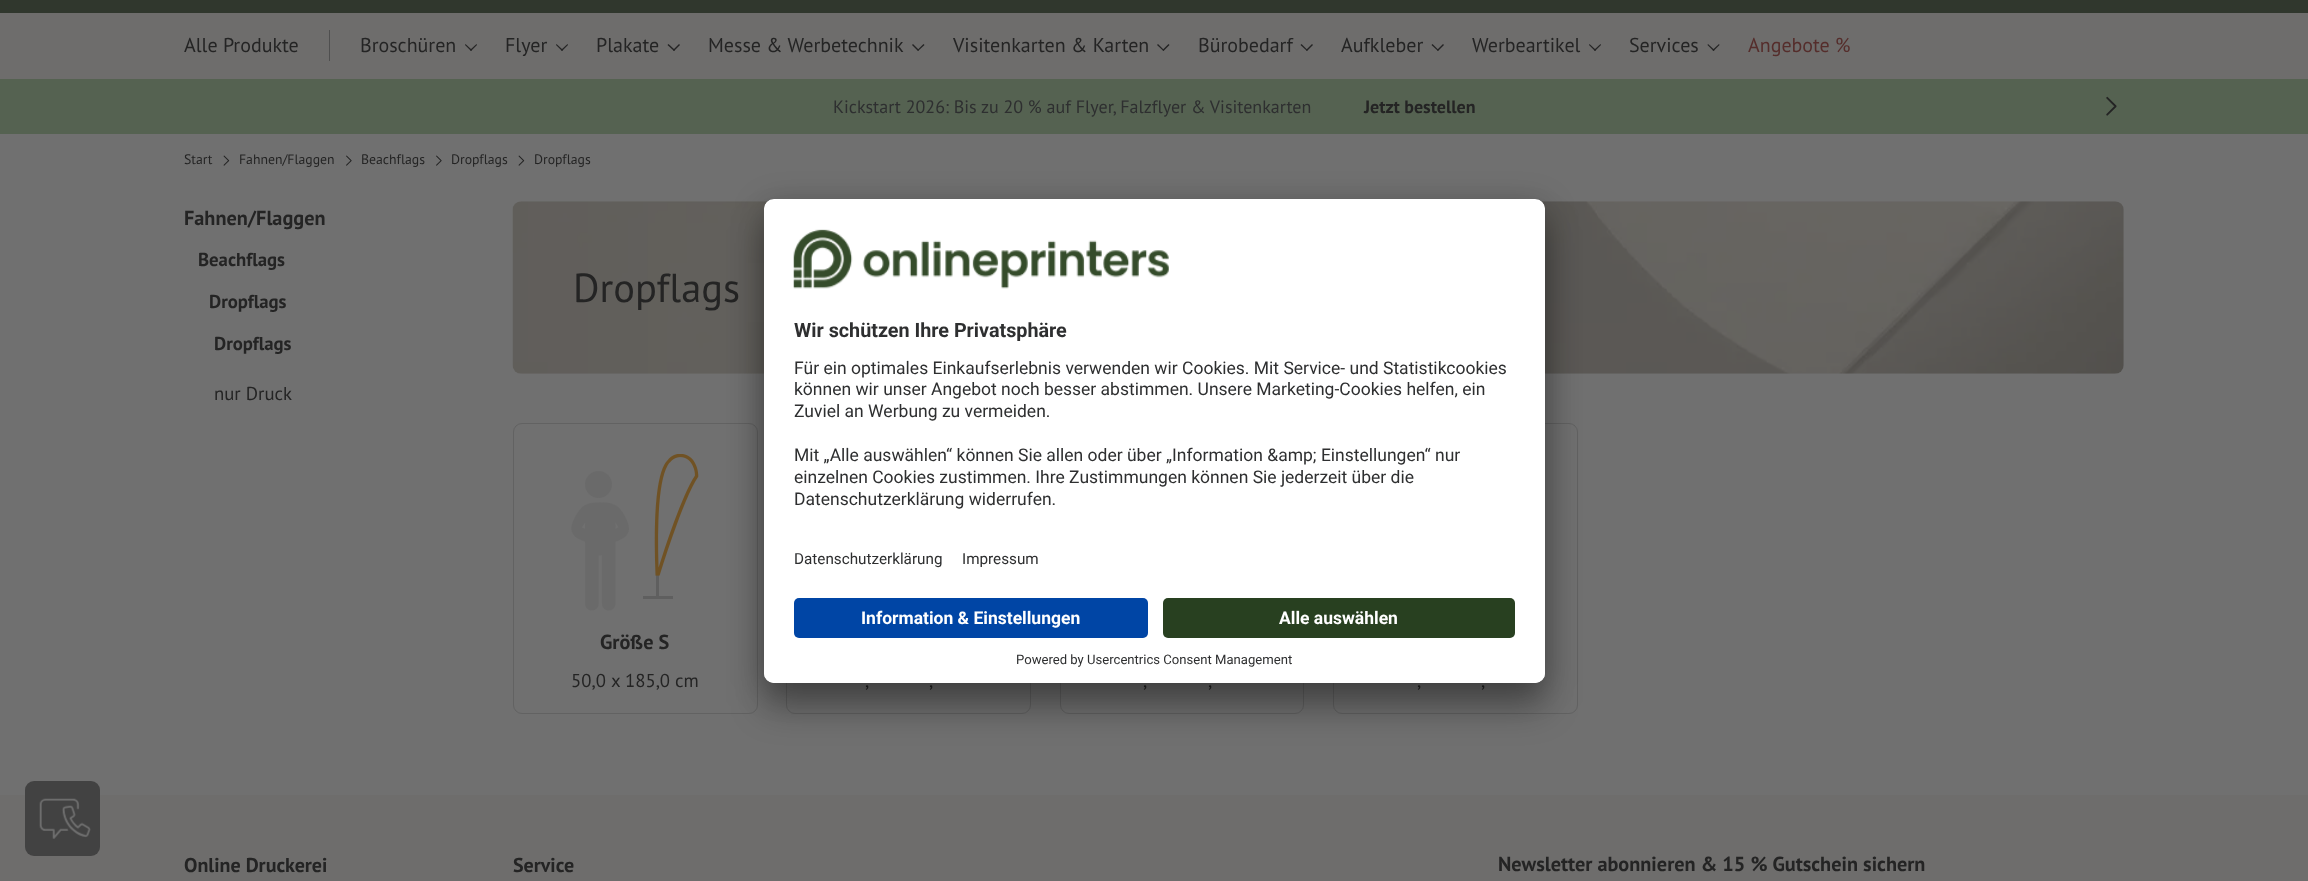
async function draw(canvas) {
	canvas.width = 2308;
	canvas.height = 881;
	const c = canvas.getContext('2d');
	c.miterLimit = 4;
	c.fontKerning = 'normal';
	async function loadImage(src) {
		const img = new Image();
		img.src = src;
		await img.decode();
		return img;
	}

	c.fillStyle = '#707070';
	c.fillRect(0, 0, 2308, 881);
	for (const [x, y, w, h, color] of [
		[0, 0, 2308, 13, '#30372d'],
		[0, 13, 2308, 66, '#6e6d6c'],
		[329, 30, 1, 31, '#4f4f4f'],
	]) {
		c.fillStyle = color;
		c.fillRect(x, y, w, h);
	}
	c.font = '20px PT Sans';
	c.fillStyle = '#242424';
	c.fillText('Alle Produkte', 184, 52);
	c.fillText('Broschüren', 360, 52);
	c.beginPath();
	c.moveTo(477, 45);
	c.lineTo(471, 51);
	c.lineTo(470, 50);
	c.lineTo(476.5, 44);
	c.closePath();
	c.fill();
	c.beginPath();
	c.moveTo(472, 50);
	c.lineTo(471, 51);
	c.lineTo(465, 45);
	c.lineTo(465.5, 44);
	c.closePath();
	c.fill();
	c.fillText('Flyer', 505, 52);
	c.beginPath();
	c.moveTo(568, 45);
	c.lineTo(562, 51);
	c.lineTo(561, 50);
	c.lineTo(567.5, 44);
	c.closePath();
	c.fill();
	c.beginPath();
	c.moveTo(563, 50);
	c.lineTo(562, 51);
	c.lineTo(556, 45);
	c.lineTo(556.5, 44);
	c.closePath();
	c.fill();
	c.fillText('Plakate', 596, 52);
	c.beginPath();
	c.moveTo(680, 45);
	c.lineTo(674, 51);
	c.lineTo(673, 50);
	c.lineTo(679, 44);
	c.closePath();
	c.fill();
	c.beginPath();
	c.moveTo(675, 50);
	c.lineTo(674, 51);
	c.lineTo(667.5, 45);
	c.lineTo(668.5, 44);
	c.closePath();
	c.fill();
	c.fillText('Messe & Werbetechnik', 708, 52);
	c.beginPath();
	c.moveTo(924.5, 45);
	c.lineTo(918, 51);
	c.lineTo(917.5, 50);
	c.lineTo(923.5, 44);
	c.closePath();
	c.fill();
	c.beginPath();
	c.moveTo(919, 50);
	c.lineTo(918, 51);
	c.lineTo(912, 45);
	c.lineTo(913, 44);
	c.closePath();
	c.fill();
	c.fillText('Visitenkarten & Karten', 953, 52);
	c.beginPath();
	c.moveTo(1169.5, 45);
	c.lineTo(1163.5, 51);
	c.lineTo(1162.5, 50);
	c.lineTo(1168.5, 44);
	c.closePath();
	c.fill();
	c.beginPath();
	c.moveTo(1164, 50);
	c.lineTo(1163.5, 51);
	c.lineTo(1157, 45);
	c.lineTo(1158, 44);
	c.closePath();
	c.fill();
	c.fillText('Bürobedarf', 1198, 52);
	c.beginPath();
	c.moveTo(1313, 45);
	c.lineTo(1307, 51);
	c.lineTo(1306, 50);
	c.lineTo(1312, 44);
	c.closePath();
	c.fill();
	c.beginPath();
	c.moveTo(1307.5, 50);
	c.lineTo(1307, 51);
	c.lineTo(1300.5, 45);
	c.lineTo(1301.5, 44);
	c.closePath();
	c.fill();
	c.fillText('Aufkleber', 1341, 52);
	c.beginPath();
	c.moveTo(1444, 45);
	c.lineTo(1438, 51);
	c.lineTo(1437, 50);
	c.lineTo(1443, 44);
	c.closePath();
	c.fill();
	c.beginPath();
	c.moveTo(1438.5, 50);
	c.lineTo(1438, 51);
	c.lineTo(1431.5, 45);
	c.lineTo(1432.5, 44);
	c.closePath();
	c.fill();
	c.fillText('Werbeartikel', 1472, 52);
	c.beginPath();
	c.moveTo(1601, 45);
	c.lineTo(1595, 51);
	c.lineTo(1594, 50);
	c.lineTo(1600.5, 44);
	c.closePath();
	c.fill();
	c.beginPath();
	c.moveTo(1596, 50);
	c.lineTo(1595, 51);
	c.lineTo(1589, 45);
	c.lineTo(1589.5, 44);
	c.closePath();
	c.fill();
	c.fillText('Services', 1629, 52);
	c.beginPath();
	c.moveTo(1719.5, 45);
	c.lineTo(1713.5, 51);
	c.lineTo(1712.5, 50);
	c.lineTo(1719, 44);
	c.closePath();
	c.fill();
	c.beginPath();
	c.moveTo(1714.5, 50);
	c.lineTo(1713.5, 51);
	c.lineTo(1707.5, 45);
	c.lineTo(1708, 44);
	c.closePath();
	c.fill();
	c.fillStyle = '#552d2b';
	c.fillText('Angebote %', 1748, 52);
	c.fillStyle = '#556251';
	c.fillRect(0, 79, 2308, 55);
	c.font = '18px PT Sans';
	c.fillStyle = '#2e2f30';
	c.fillText('Kickstart 2026: Bis zu 20 % auf Flyer, Falzflyer & Visitenkarten', 833, 113);
	c.font = 'bold 18px PT Sans';
	c.fillStyle = '#242424';
	c.fillText('Jetzt bestellen', 1364, 113);
	c.drawImage(await loadImage('img1.png'), 2106, 96, 11, 20);
	c.font = '13.75px PT Sans';
	c.fillText('Start', 184, 164);
	c.drawImage(await loadImage('img2.png'), 223, 155, 7, 11);
	c.fillText('Fahnen/Flaggen', 239, 164);
	c.drawImage(await loadImage('img3.png'), 346, 155, 6, 11);
	c.fillText('Beachflags', 361, 164);
	c.drawImage(await loadImage('img3.png'), 436, 155, 6, 11);
	c.fillText('Dropflags', 451, 164);
	c.drawImage(await loadImage('img2.png'), 518, 155, 7, 11);
	c.fillText('Dropflags', 534, 164);
	c.font = 'bold 20.3px PT Sans';
	c.fillText('Fahnen/Flaggen', 184, 225);
	c.font = 'bold 18.75px PT Sans';
	for (const [text, x, y] of [
		['Beachflags', 198, 266],
		['Dropflags', 209, 308],
		['Dropflags', 214, 350],
	]) {
		c.fillText(text, x, y);
	}
	c.font = '18.75px PT Sans';
	c.fillText('nur Druck', 214, 400);
	c.drawImage(await loadImage('img4.png'), 512, 201, 1612, 173);
	c.font = '40.5px PT Sans';
	c.fillText('Dropflags', 573, 302);
	c.beginPath();
	c.roundRect(513.5, 423.5, 244, 290, 8.5);
	c.strokeStyle = '#626262';
	c.stroke();
	c.drawImage(await loadImage('img5.png'), 571, 454, 128, 157);
	c.font = 'bold 20.3px PT Sans';
	c.fillText('Größe S', 600, 649);
	c.font = '18.75px PT Sans';
	c.fillText('50,0 x 185,0 cm', 571, 687);
	c.beginPath();
	c.roundRect(786.5, 423.5, 244, 290, 8.5);
	c.stroke();
	c.fillText(',', 865, 687);
	c.fillText(',', 929, 687);
	c.beginPath();
	c.roundRect(1060.5, 423.5, 243, 290, 8.5);
	c.stroke();
	c.fillText(',', 1143, 687);
	c.fillText(',', 1208, 687);
	c.beginPath();
	c.roundRect(1333.5, 423.5, 244, 290, 8.5);
	c.stroke();
	c.fillText(',', 1417, 687);
	c.fillText(',', 1481, 687);
	c.fillStyle = '#0000004d';
	c.filter = 'blur(17.5px)';
	c.beginPath();
	c.roundRect(764, 224, 781, 484, 10);
	c.fill();
	c.filter = 'none';
	c.fillStyle = '#00000038';
	c.filter = 'blur(16px)';
	c.beginPath();
	c.roundRect(764, 205, 781, 484, 10);
	c.fill();
	c.filter = 'none';
	c.fillStyle = '#fff';
	c.beginPath();
	c.roundRect(764, 199, 781, 484, 10);
	c.fill();
	c.save();
	c.beginPath();
	c.roundRect(764, 199, 781, 484, 10);
	c.clip();
	c.beginPath();
	c.roundRect(764, 199, 781, 389, [10, 10, 0, 0]);
	c.clip();
	c.fillRect(764, 200, 781, 388);
	c.restore();
	c.drawImage(await loadImage('img6.png'), 793, 229, 376, 60);
	c.font = 'bold 19.75px Roboto';
	c.fillStyle = '#2e2f30';
	c.fillText('Wir schützen Ihre Privatsphäre', 794, 337);
	c.font = '17.5px Roboto';
	for (const [text, x, y] of [
		['Für ein optimales Einkaufserlebnis verwenden wir Cookies. Mit Service- und Statistikcookies', 794, 374],
		['können wir unser Angebot noch besser abstimmen. Unsere Marketing-Cookies helfen, ein', 794, 395],
		['Zuviel an Werbung zu vermeiden.', 794, 417],
		['Mit „Alle auswählen“ können Sie allen oder über „Information &amp; Einstellungen“ nur', 794, 461],
		['einzelnen Cookies zustimmen. Ihre Zustimmungen können Sie jederzeit über die', 794, 483],
		['Datenschutzerklärung widerrufen.', 794, 505],
	]) {
		c.fillText(text, x, y);
	}
	c.font = '15.25px Roboto';
	c.fillText('Datenschutzerklärung', 794, 564);
	c.fillText('Impressum', 962, 564);
	c.fillStyle = '#fff';
	c.beginPath();
	c.roundRect(764, 588, 781, 95, [0, 0, 10, 10]);
	c.fill();
	c.fillStyle = '#0045a5';
	c.beginPath();
	c.roundRect(794, 598, 354, 40, 5);
	c.fill();
	c.font = 'bold 17.5px Roboto';
	c.fillStyle = '#fff';
	c.fillText('Information & Einstellungen', 861, 624);
	c.fillStyle = '#284020';
	c.beginPath();
	c.roundRect(1163, 598, 352, 40, 5);
	c.fill();
	c.fillStyle = '#fff';
	c.fillText('Alle auswählen', 1279, 624);
	c.font = '13.1px Roboto';
	c.fillStyle = '#2e2f30';
	c.fillText('Powered by Usercentrics Consent Management', 1016, 664);
	c.fillStyle = '#6e6d6c';
	c.fillRect(0, 795, 2308, 86);
	c.fillStyle = '#424242';
	c.beginPath();
	c.roundRect(25, 781, 75, 75, 9);
	c.fill();
	c.drawImage(await loadImage('img7.png'), 39, 798, 52, 41);
	c.font = 'bold 20px PT Sans';
	c.fillStyle = '#242424';
	c.fillText('Online Druckerei', 184, 872);
	c.fillText('Service', 513, 872);
	c.font = 'bold 20.3px PT Sans';
	c.fillText('Newsletter abonnieren & 15 % Gutschein sichern', 1498, 871);
}

draw(document.querySelector('canvas'));
